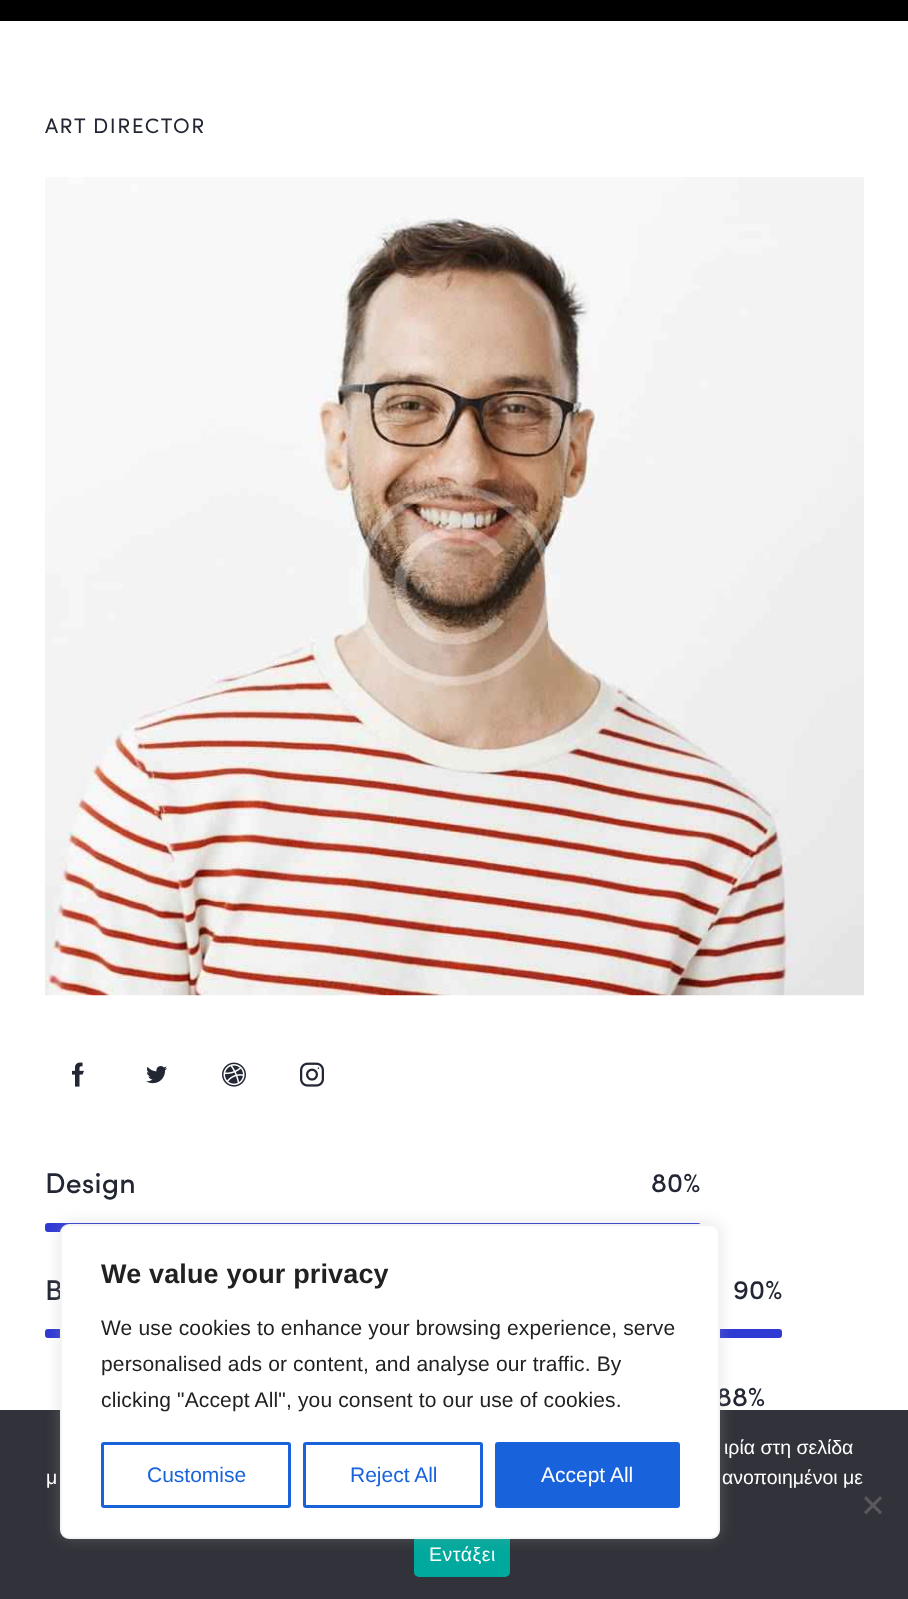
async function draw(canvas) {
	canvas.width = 908;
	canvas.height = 1599;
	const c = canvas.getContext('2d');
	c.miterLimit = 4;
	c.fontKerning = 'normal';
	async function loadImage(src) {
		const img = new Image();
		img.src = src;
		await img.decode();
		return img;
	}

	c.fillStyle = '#fff';
	c.fillRect(0, 0, 908, 1599);
	c.fillStyle = '#000';
	c.fillRect(0, 0, 908, 21);
	c.letterSpacing = '1.5px';
	c.font = '21px Sofia';
	c.fillStyle = '#222733';
	c.fillText('ART DIRECTOR', 45, 133);
	c.drawImage(await loadImage('img1.png'), 45, 177, 819, 819);
	c.drawImage(await loadImage('img2.png'), 72, 1062, 12, 25);
	c.drawImage(await loadImage('img3.png'), 146, 1066, 21, 18);
	c.drawImage(await loadImage('img4.png'), 222, 1062, 24, 25);
	c.drawImage(await loadImage('img5.png'), 300, 1062, 24, 25);
	c.letterSpacing = '0.15px';
	c.font = '500 28.5px Sofia';
	c.fillText('Design', 45, 1193);
	c.fillStyle = '#2f39d3';
	c.beginPath();
	c.roundRect(45, 1223, 656, 9, 3);
	c.fill();
	c.font = '500 27px Sofia';
	c.fillStyle = '#222733';
	c.fillText('80%', 651, 1192);
	c.font = '500 28.5px Sofia';
	c.fillText('B', 45, 1300);
	c.fillStyle = '#2f39d3';
	c.beginPath();
	c.roundRect(45, 1329, 737, 9, 3);
	c.fill();
	c.font = '500 27px Sofia';
	c.fillStyle = '#222733';
	c.fillText('90%', 733, 1299);
	c.fillText('88%', 716, 1406);
	c.fillStyle = '#32323a';
	c.fillRect(0, 1410, 908, 189);
	c.fillStyle = '#00a99d';
	c.beginPath();
	c.roundRect(414, 1532, 96, 45, 5);
	c.fill();
	c.fillStyle = '#acabab4d';
	c.filter = 'blur(7.5px)';
	c.beginPath();
	c.roundRect(60, 1223, 660, 315, 9);
	c.fill();
	c.filter = 'none';
	c.fillStyle = '#fff';
	c.beginPath();
	c.roundRect(61, 1225, 658, 313, 8);
	c.fill();
	c.strokeStyle = '#f4f4f4';
	c.lineWidth = 2;
	c.stroke();
	c.font = 'bold 27px Liberation Sans';
	c.fillStyle = '#212121';
	c.fillText('We value your privacy', 101, 1283);
	c.font = '21px Liberation Sans';
	for (const [text, x, y] of [
		['We use cookies to enhance your browsing experience, serve', 101, 1335],
		['personalised ads or content, and analyse our traffic. By', 101, 1371],
		['clicking "Accept All", you consent to our use of cookies.', 101, 1407],
	]) {
		c.fillText(text, x, y);
	}
	c.beginPath();
	c.roundRect(102.5, 1443.5, 187, 63, 1.5);
	c.strokeStyle = '#1863dc';
	c.lineWidth = 3;
	c.stroke();
	c.letterSpacing = '0px';
	c.fillStyle = '#1863dc';
	c.fillText('Customise', 147, 1482);
	c.beginPath();
	c.roundRect(304.5, 1443.5, 177, 63, 1.5);
	c.stroke();
	c.fillText('Reject All', 350, 1482);
	c.beginPath();
	c.roundRect(496.5, 1443.5, 182, 63, 1.5);
	c.fill();
	c.stroke();
	c.fillStyle = '#fff';
	c.fillText('Accept All', 541, 1482);
	c.font = '19.5px Liberation Sans';
	for (const [text, x, y] of [
		['ιρία στη σελίδα', 724, 1454],
		['μ', 46, 1484],
		['ανοποιημένοι με', 722, 1484],
	]) {
		c.fillText(text, x, y);
	}
	c.fillStyle = '#59595d';
	c.beginPath();
	c.moveTo(880, 1496);
	c.lineTo(882, 1498.5);
	c.lineTo(866, 1514.5);
	c.lineTo(864, 1512);
	c.closePath();
	c.fill();
	c.beginPath();
	c.moveTo(864, 1498.5);
	c.lineTo(866, 1496);
	c.lineTo(882, 1512);
	c.lineTo(880, 1514.5);
	c.closePath();
	c.fill();
	c.letterSpacing = '0.5px';
	c.fillStyle = '#fff';
	c.fillText('Εντάξει', 429, 1561);
}

draw(document.querySelector('canvas'));
